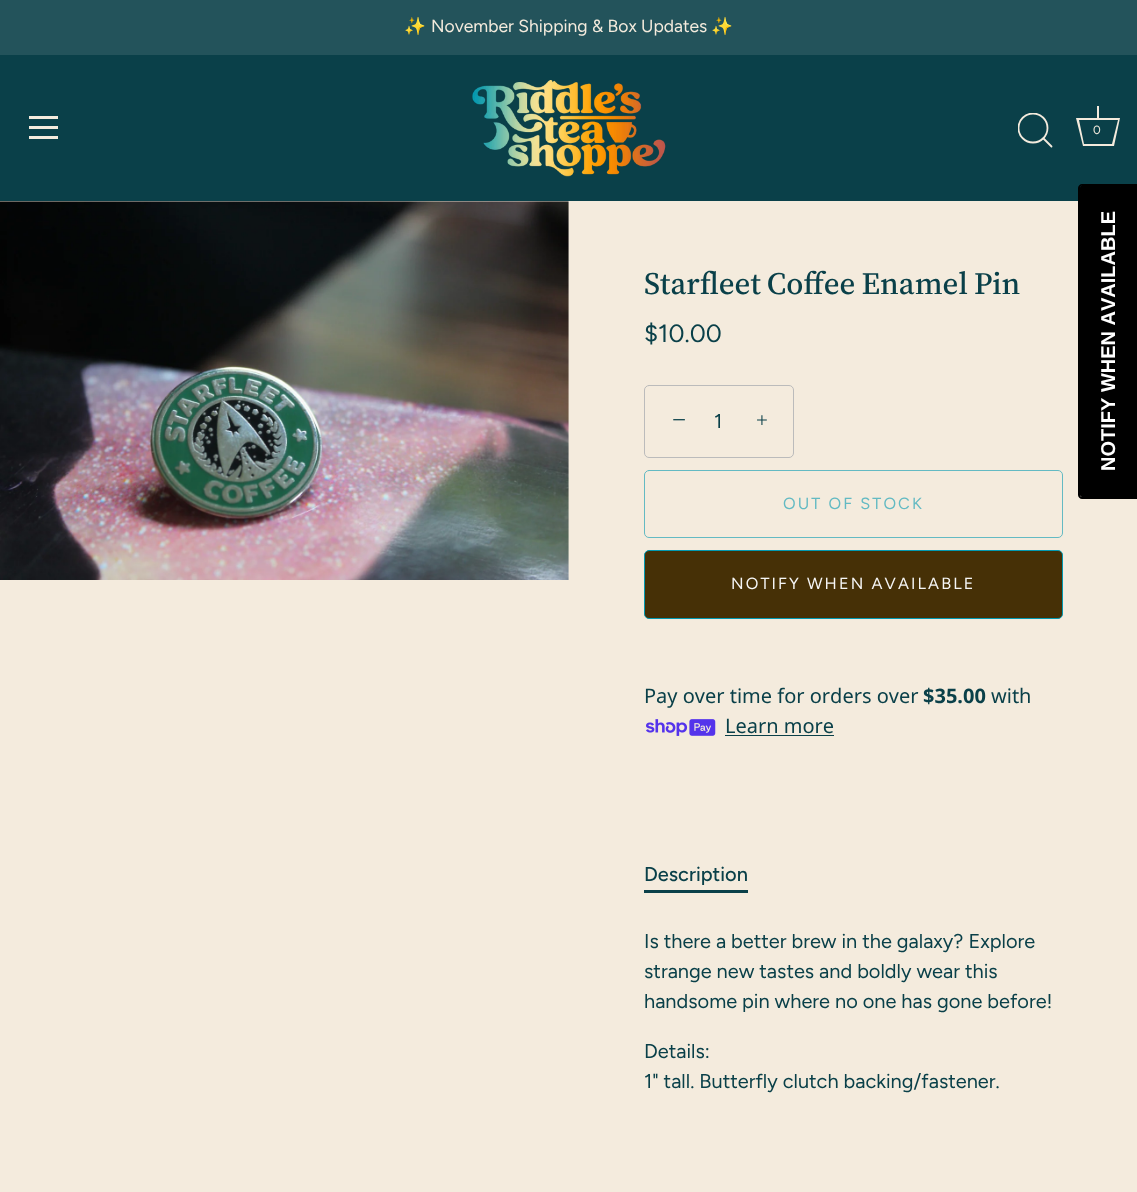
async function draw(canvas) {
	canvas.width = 1137;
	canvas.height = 1192;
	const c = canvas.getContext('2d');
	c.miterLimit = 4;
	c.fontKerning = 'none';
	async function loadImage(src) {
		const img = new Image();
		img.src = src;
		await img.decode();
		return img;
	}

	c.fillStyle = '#f4ebdd';
	c.fillRect(0, 0, 1137, 1192);
	c.fillStyle = '#0a4049';
	c.fillRect(0, 55, 1137, 146);
	c.fillStyle = '#23535b';
	c.fillRect(0, 0, 1137, 55);
	c.font = '17.5px Noto Color Emoji';
	c.fillStyle = '#f4ebdd';
	c.fillText('✨', 404, 32);
	c.font = '17.5px Figtree';
	c.fillText('November Shipping & Box Updates', 431, 32);
	c.font = '17.5px Noto Color Emoji';
	c.fillText('✨', 711, 32);
	for (const [x, y, w, h, color] of [
		[29, 116, 29, 3, '#f4ebdd'],
		[29, 126, 29, 3, '#f4ebdd'],
		[29, 136, 29, 3, '#f4ebdd'],
	]) {
		c.fillStyle = color;
		c.fillRect(x, y, w, h);
	}
	c.drawImage(await loadImage('img1.png'), 472, 80, 194, 97);
	c.save();
	c.beginPath();
	c.rect(1018, 113, 36, 36);
	c.clip();
	c.beginPath();
	c.arc(1033, 128, 14.5, 0, 2 * Math.PI);
	c.strokeStyle = '#f4ebdd';
	c.lineWidth = 1.8;
	c.stroke();
	c.restore();
	c.beginPath();
	c.moveTo(1051.5, 146.5);
	c.lineTo(1043.5, 138.5);
	c.strokeStyle = '#f4ebdd';
	c.lineWidth = 1.8;
	c.lineCap = 'round';
	c.lineJoin = 'round';
	c.stroke();
	c.fillRect(1097, 106, 2, 12);
	c.beginPath();
	c.moveTo(1118, 120);
	c.lineTo(1112, 144);
	c.lineTo(1084, 144);
	c.lineTo(1079, 120);
	c.lineTo(1118, 120);
	c.moveTo(1120, 118);
	c.lineTo(1076, 118);
	c.lineTo(1083, 146);
	c.lineTo(1114, 146);
	c.closePath();
	c.fill();
	c.font = '12px Figtree';
	c.fillText('0', 1093, 134);
	c.drawImage(await loadImage('img2.png'), 0, 201, 569, 379);
	c.wordSpacing = '-1px';
	c.font = '500 31.25px "Source Serif 4"';
	c.fillStyle = '#0a4049';
	c.fillText('Starfleet Coffee Enamel Pin', 644, 294);
	c.wordSpacing = '0px';
	c.font = '25px Figtree';
	c.fillText('$10.00', 644, 342);
	c.beginPath();
	c.roundRect(644.5, 385.5, 149, 72, 4.5);
	c.strokeStyle = '#bbb';
	c.lineWidth = 1;
	c.lineJoin = 'miter';
	c.stroke();
	c.font = '25px Liberation Serif';
	c.fillText('−', 672, 428);
	c.letterSpacing = '1px';
	c.font = '20px Figtree';
	c.fillText('1', 714, 428);
	c.letterSpacing = '0px';
	c.font = '21px Liberation Serif';
	c.fillText('+', 756, 427);
	c.beginPath();
	c.roundRect(644.5, 470.5, 418, 67, 4.5);
	c.strokeStyle = '#63bac3';
	c.stroke();
	c.letterSpacing = '2.1px';
	c.font = '16.25px Figtree';
	c.fillStyle = '#63bac3';
	c.fillText('OUT OF STOCK', 783, 509);
	c.fillStyle = '#463006';
	c.beginPath();
	c.roundRect(644.5, 550.5, 418, 68, 4.5);
	c.fill();
	c.strokeStyle = '#0299b1';
	c.stroke();
	c.fillStyle = '#f6f6f6';
	c.fillText('NOTIFY WHEN AVAILABLE', 731, 589);
	c.letterSpacing = '0px';
	c.font = '20px Noto Sans';
	c.fillStyle = '#0a4049';
	c.fillText('Pay over time for orders over', 644, 703);
	c.font = 'bold 20px Noto Sans';
	c.fillText('$35.00', 923, 703);
	c.font = '20px Noto Sans';
	c.fillText('with', 991, 703);
	c.drawImage(await loadImage('img3.png'), 646, 719, 70, 17);
	c.fillText('Learn more', 725, 733);
	c.fillRect(725, 735, 109, 1);
	c.font = '500 20px Figtree';
	c.fillText('Description', 644, 881);
	c.fillRect(644, 890, 104, 3);
	c.font = '20px Figtree';
	for (const [text, x, y] of [
		['Is there a better brew in the galaxy? Explore', 644, 948],
		['strange new tastes and boldly wear this', 644, 978],
		['handsome pin where no one has gone before!', 644, 1008],
		['Details:', 644, 1058],
		['1" tall. Butterfly clutch backing/fastener.', 644, 1088],
	]) {
		c.fillText(text, x, y);
	}
	c.fillStyle = '#000';
	c.beginPath();
	c.moveTo(1080, 495);
	c.lineTo(1080, 188);
	c.bezierCurveTo(1080, 187, 1081, 185, 1082, 185);
	c.lineTo(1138, 185);
	c.lineTo(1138, 497);
	c.lineTo(1082, 497);
	c.bezierCurveTo(1081, 497, 1080, 496, 1080, 495);
	c.closePath();
	c.fill();
	c.beginPath();
	c.moveTo(1078, 495);
	c.lineTo(1078, 188);
	c.bezierCurveTo(1078, 186, 1080, 184, 1082, 184);
	c.lineTo(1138, 184);
	c.lineTo(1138, 499);
	c.lineTo(1082, 499);
	c.bezierCurveTo(1080, 499, 1078, 497, 1078, 495);
	c.closePath();
	c.moveTo(1080, 495);
	c.lineTo(1080, 188);
	c.bezierCurveTo(1080, 187, 1081, 185, 1082, 185);
	c.lineTo(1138, 185);
	c.lineTo(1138, 497);
	c.lineTo(1082, 497);
	c.bezierCurveTo(1081, 497, 1080, 496, 1080, 495);
	c.closePath();
	c.fill('evenodd');
	c.font = 'bold 20px Liberation Sans';
	c.fillStyle = '#fff';
	c.save();
	c.translate(1115, 471);
	c.rotate(-90 * Math.PI / 180);
	c.fillText('NOTIFY WHEN AVAILABLE', 0, 0);
	c.restore();
}

draw(document.querySelector('canvas'));
